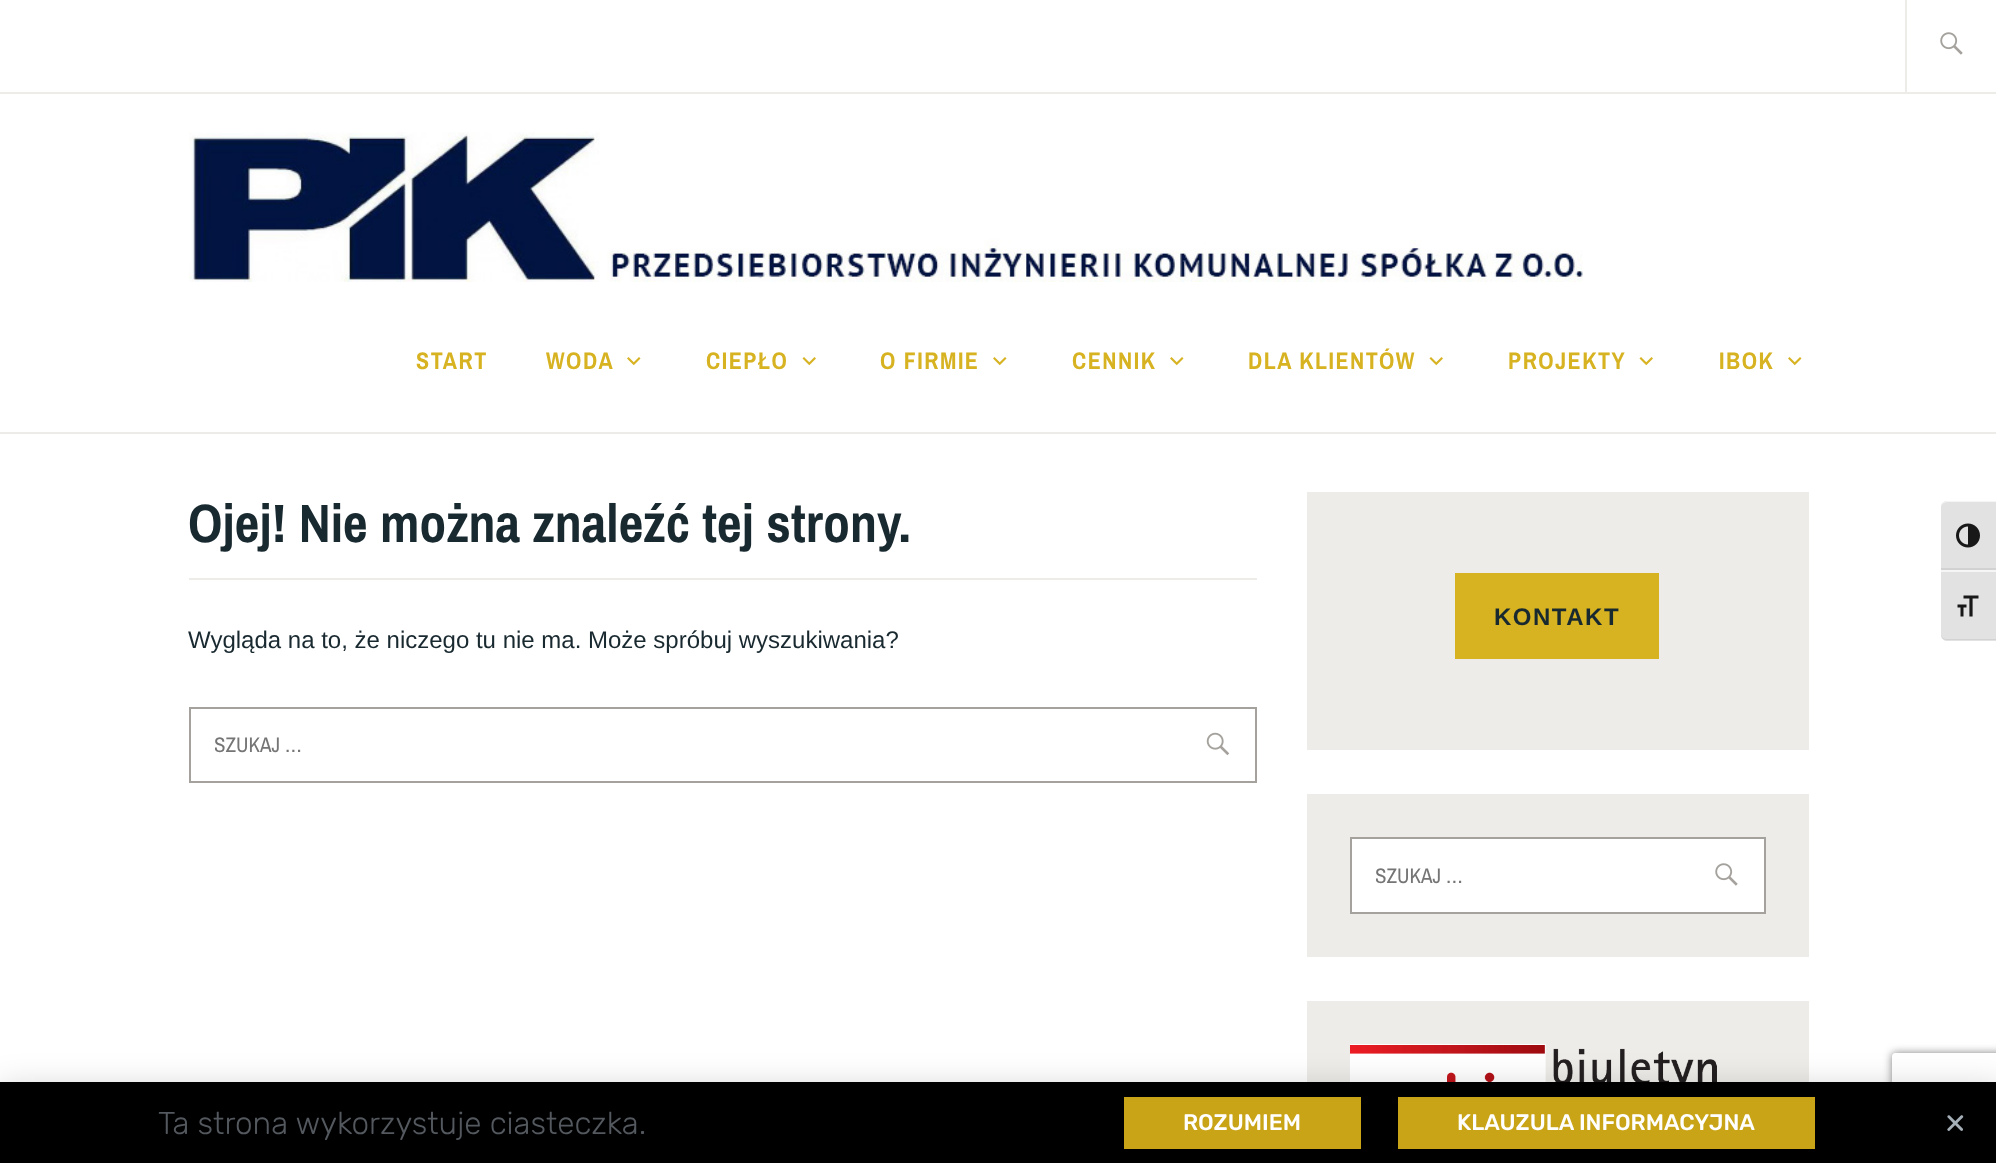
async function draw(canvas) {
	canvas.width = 1996;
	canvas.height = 1163;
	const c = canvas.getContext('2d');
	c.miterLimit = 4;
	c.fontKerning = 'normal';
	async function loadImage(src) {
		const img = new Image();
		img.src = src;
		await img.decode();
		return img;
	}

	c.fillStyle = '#fff';
	c.fillRect(0, 0, 1996, 1163);
	for (const [x, y, w, h, color] of [
		[0, 432, 1996, 2, '#eeece8'],
		[0, 92, 1996, 2, '#eeece8'],
		[1905, 0, 2, 92, '#eeece8'],
	]) {
		c.fillStyle = color;
		c.fillRect(x, y, w, h);
	}
	c.drawImage(await loadImage('img1.png'), 1940, 32, 23, 23);
	c.drawImage(await loadImage('img2.png'), 189, 132, 1394, 150);
	c.letterSpacing = '1.5px';
	c.font = 'bold 24px Archivo Narrow';
	c.fillStyle = '#d7b221';
	c.fillText('START', 416, 369);
	c.fillText('WODA', 546, 369);
	c.drawImage(await loadImage('img3.png'), 627, 357, 14, 9);
	c.fillText('CIEPŁO', 706, 369);
	c.drawImage(await loadImage('img4.png'), 802, 357, 14, 9);
	c.fillText('O FIRMIE', 880, 369);
	c.drawImage(await loadImage('img3.png'), 993, 357, 14, 9);
	c.fillText('CENNIK', 1072, 369);
	c.drawImage(await loadImage('img3.png'), 1170, 357, 14, 9);
	c.fillText('DLA KLIENTÓW', 1248, 369);
	c.drawImage(await loadImage('img4.png'), 1429, 357, 14, 9);
	c.fillText('PROJEKTY', 1508, 369);
	c.drawImage(await loadImage('img4.png'), 1639, 357, 14, 9);
	c.fillText('IBOK', 1719, 369);
	c.drawImage(await loadImage('img3.png'), 1788, 357, 14, 9);
	c.fillStyle = '#eeece8';
	c.fillRect(189, 578, 1068, 2);
	c.letterSpacing = '0px';
	c.font = 'bold 54px Archivo Narrow';
	c.fillStyle = '#192930';
	c.fillText('Ojej! Nie można znaleźć tej strony.', 188, 542);
	c.font = '24px Liberation Sans';
	c.fillText('Wygląda na to, że niczego tu nie ma. Może spróbuj wyszukiwania?', 188, 648);
	c.strokeStyle = '#a5a29d';
	c.lineWidth = 2;
	c.strokeRect(190, 708, 1066, 74);
	c.save();
	c.beginPath();
	c.rect(215, 731, 1011, 27);
	c.clip();
	c.font = '21px Archivo Narrow';
	c.fillStyle = '#757575';
	c.fillText('SZUKAJ …', 214, 752);
	c.restore();
	c.drawImage(await loadImage('img5.png'), 1206, 732, 24, 24);
	c.fillStyle = '#eeece8';
	c.fillRect(1307, 492, 502, 258);
	c.fillStyle = '#d7b221';
	c.fillRect(1455, 573, 204, 86);
	c.letterSpacing = '1.5px';
	c.font = 'bold 24px Liberation Sans';
	c.fillStyle = '#192930';
	c.fillText('KONTAKT', 1494, 625);
	c.fillStyle = '#eeece8';
	c.fillRect(1307, 794, 502, 163);
	c.fillStyle = '#fff';
	c.beginPath();
	c.rect(1351, 838, 414, 75);
	c.fill();
	c.stroke();
	c.save();
	c.beginPath();
	c.rect(1376, 863, 358, 27);
	c.clip();
	c.letterSpacing = '0px';
	c.font = '21px Archivo Narrow';
	c.fillStyle = '#757575';
	c.fillText('SZUKAJ …', 1375, 883);
	c.restore();
	c.drawImage(await loadImage('img1.png'), 1715, 863, 23, 23);
	c.fillStyle = '#eeece8';
	c.fillRect(1307, 1001, 502, 81);
	c.drawImage(await loadImage('img6.png'), 1350, 1044, 367, 38);
	c.fillStyle = '#e2e2e2';
	c.beginPath();
	c.moveTo(1947, 501);
	c.lineTo(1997, 501);
	c.lineTo(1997, 570);
	c.lineTo(1941, 570);
	c.lineTo(1941, 507);
	c.bezierCurveTo(1941, 503.5, 1943.5, 501, 1947, 501);
	c.closePath();
	c.fill();
	c.fillStyle = '#f5f5f5';
	c.beginPath();
	c.moveTo(1947, 501);
	c.bezierCurveTo(1944, 501, 1941, 504, 1941, 507);
	c.bezierCurveTo(1941, 505, 1944, 502, 1947, 502);
	c.lineTo(1996, 502);
	c.lineTo(1996, 501);
	c.closePath();
	c.fill();
	c.fillStyle = '#d2d2d2';
	c.fillRect(1941, 568, 55, 2);
	c.drawImage(await loadImage('img7.png'), 1956, 523, 24, 25);
	c.fillStyle = '#e2e2e2';
	c.beginPath();
	c.moveTo(1941, 570);
	c.lineTo(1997, 570);
	c.lineTo(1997, 641);
	c.lineTo(1947, 641);
	c.bezierCurveTo(1943.5, 641, 1941, 638.5, 1941, 635);
	c.closePath();
	c.fill();
	c.fillStyle = '#f5f5f5';
	c.fillRect(1941, 570, 55, 2);
	c.fillStyle = '#d2d2d2';
	c.beginPath();
	c.moveTo(1996, 640);
	c.lineTo(1996, 639);
	c.lineTo(1947, 639);
	c.bezierCurveTo(1944, 639, 1941, 637, 1941, 634);
	c.bezierCurveTo(1941, 638, 1944, 640, 1947, 640);
	c.closePath();
	c.fill();
	c.drawImage(await loadImage('img8.png'), 1957, 595, 22, 22);
	c.fillStyle = '#00000033';
	c.filter = 'blur(17px)';
	c.beginPath();
	c.rect(-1, 1089, 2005, 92);
	c.fill();
	c.filter = 'none';
	c.save();
	c.beginPath();
	c.moveTo(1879, 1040);
	c.lineTo(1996, 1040);
	c.lineTo(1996, 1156);
	c.lineTo(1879, 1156);
	c.closePath();
	c.moveTo(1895, 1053);
	c.lineTo(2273, 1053);
	c.bezierCurveTo(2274.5, 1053, 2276, 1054.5, 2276, 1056);
	c.lineTo(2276, 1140);
	c.bezierCurveTo(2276, 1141.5, 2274.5, 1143, 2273, 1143);
	c.lineTo(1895, 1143);
	c.bezierCurveTo(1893.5, 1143, 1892, 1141.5, 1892, 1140);
	c.lineTo(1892, 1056);
	c.bezierCurveTo(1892, 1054.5, 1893.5, 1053, 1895, 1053);
	c.closePath();
	c.clip('evenodd');
	c.fillStyle = '#808080';
	c.filter = 'blur(4px)';
	c.beginPath();
	c.roundRect(1892, 1053, 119, 90, 3);
	c.fill();
	c.filter = 'none';
	c.restore();
	c.fillStyle = '#000';
	c.fillRect(0, 1082, 1996, 81);
	c.letterSpacing = '0px';
	c.font = '300 31.5px Rubik';
	c.fillStyle = '#54595f';
	c.fillText('Ta strona wykorzystuje ciasteczka.', 158, 1134);
	c.fillStyle = '#c9a416';
	c.fillRect(1124, 1097, 237, 52);
	c.font = '500 22.5px Rubik';
	c.fillStyle = '#fff';
	c.fillText('ROZUMIEM', 1183, 1130);
	c.fillStyle = '#c9a416';
	c.fillRect(1398, 1097, 417, 52);
	c.fillStyle = '#fff';
	c.fillText('KLAUZULA INFORMACYJNA', 1457, 1130);
	c.drawImage(await loadImage('img9.png'), 1947, 1115, 17, 16);
}

draw(document.querySelector('canvas'));
